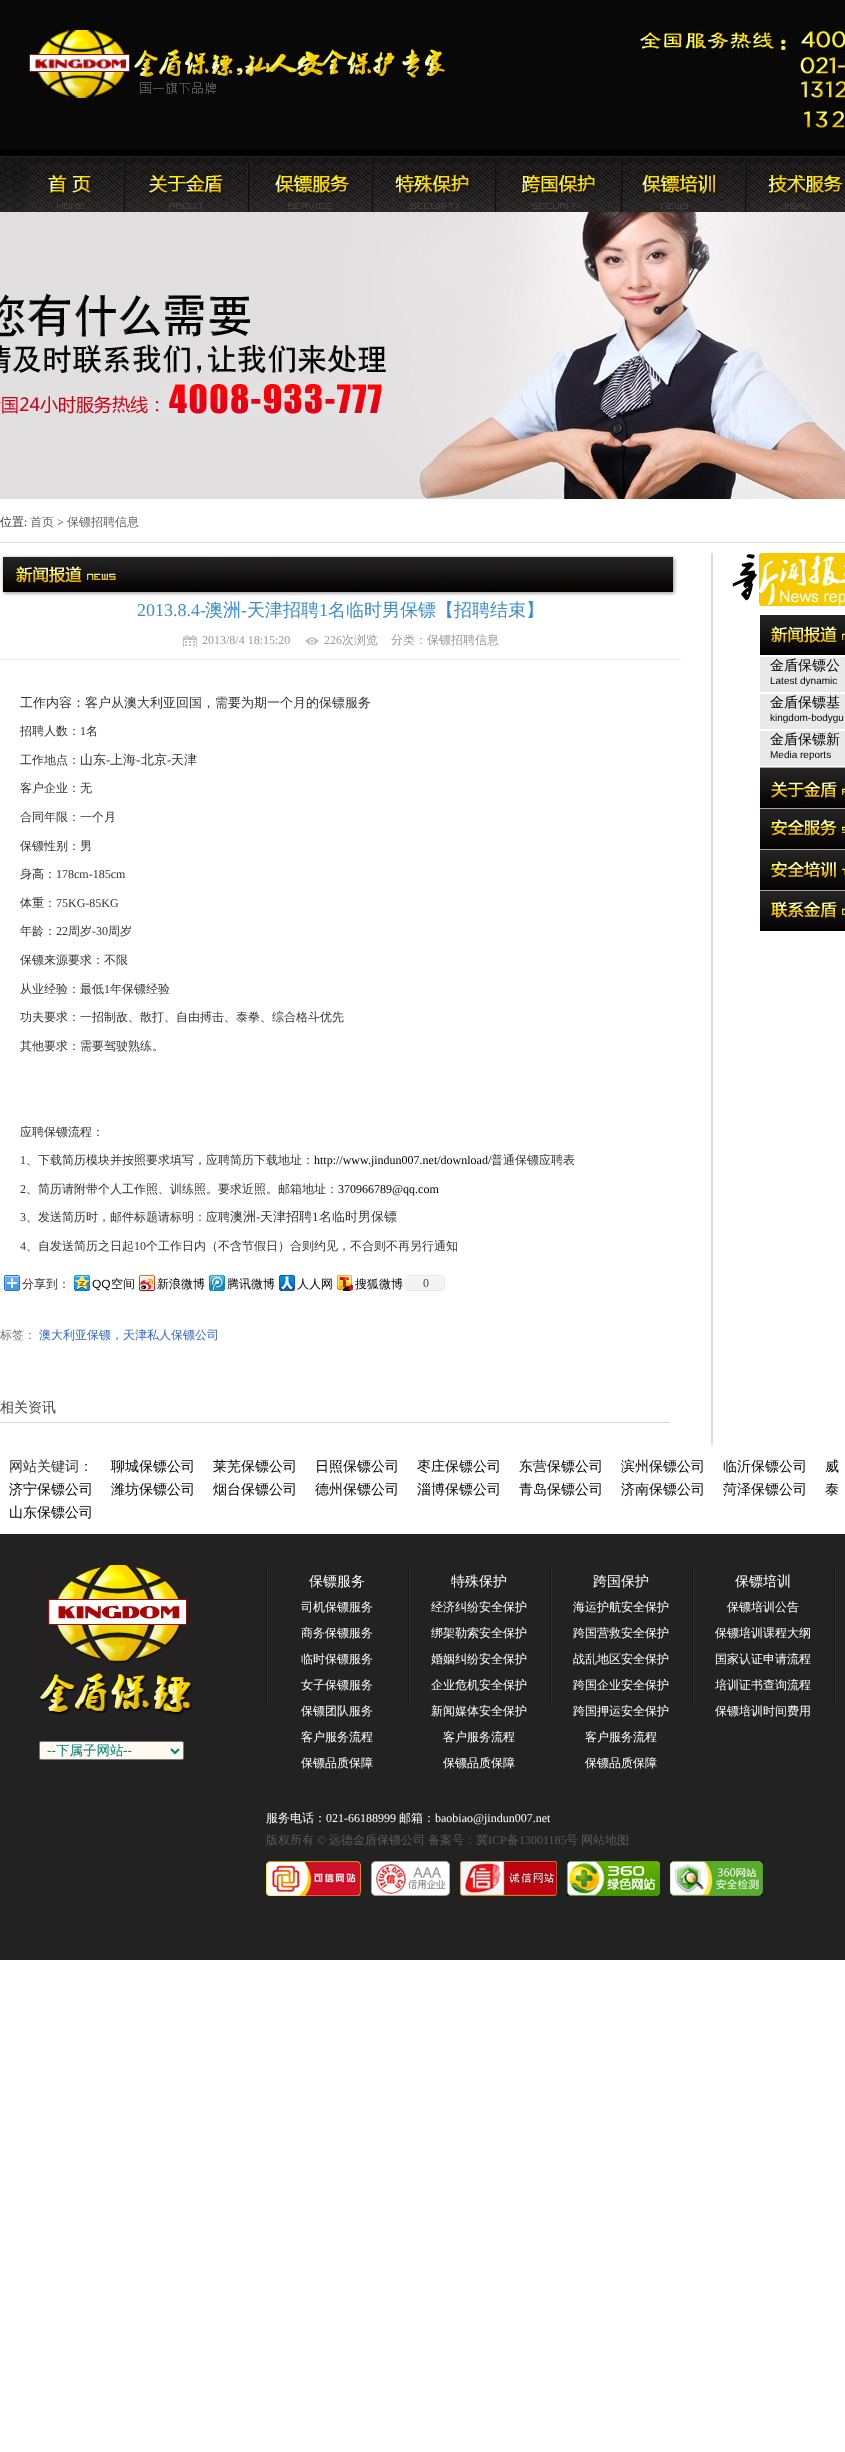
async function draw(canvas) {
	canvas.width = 845;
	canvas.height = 2452;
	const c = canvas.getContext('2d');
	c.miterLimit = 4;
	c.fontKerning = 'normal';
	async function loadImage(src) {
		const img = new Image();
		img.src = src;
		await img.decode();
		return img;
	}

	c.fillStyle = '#fff';
	c.fillRect(0, 0, 845, 2452);
	c.fillStyle = '#080808';
	c.fillRect(0, 0, 845, 150);
	c.drawImage(await loadImage('img1.png'), 28, 30, 421, 68);
	c.drawImage(await loadImage('img2.png'), 640, 31, 205, 104);
	c.drawImage(await loadImage('img3.png'), 0, 150, 845, 62);
	c.drawImage(await loadImage('img4.png'), 28, 163, 817, 49);
	c.drawImage(await loadImage('img5.png'), 0, 212, 845, 287);
	c.fillStyle = '#dedede';
	c.fillRect(0, 542, 845, 1);
	c.font = '500 12px WenQuanYi Zen Hei';
	c.fillStyle = '#333';
	c.fillText('位置', 0, 526);
	c.font = '12px Liberation Serif';
	c.fillText(':', 24, 526);
	c.font = '500 12px WenQuanYi Zen Hei';
	c.fillStyle = '#666';
	c.fillText('首页', 30, 526);
	c.font = '12px Liberation Serif';
	c.fillStyle = '#333';
	c.fillText('>', 57, 526);
	c.font = '500 12px WenQuanYi Zen Hei';
	c.fillStyle = '#666';
	c.fillText('保镖招聘信息', 67, 526);
	c.fillStyle = '#dedede';
	c.fillRect(711, 553, 2, 892);
	c.drawImage(await loadImage('img6.png'), 0, 555, 677, 41);
	c.drawImage(await loadImage('img7.png'), 14, 565, 103, 18);
	c.fillStyle = '#eee';
	c.fillRect(0, 659, 681, 1);
	c.font = '18px Liberation Serif';
	c.fillStyle = '#3b8dd1';
	c.fillText('2013.8.4-', 137, 616);
	c.font = '500 18px WenQuanYi Zen Hei';
	c.fillText('澳洲', 205, 616);
	c.font = '18px Liberation Serif';
	c.fillText('-', 241, 616);
	c.font = '500 18px WenQuanYi Zen Hei';
	c.fillText('天津招聘', 247, 616);
	c.font = '18px Liberation Serif';
	c.fillText('1', 319, 616);
	c.font = '500 18px WenQuanYi Zen Hei';
	c.fillText('名临时男保镖【招聘结束】', 328, 616);
	c.drawImage(await loadImage('img8.png'), 182, 635, 15, 12);
	c.font = '12px Liberation Serif';
	c.fillStyle = '#999';
	c.fillText('2013/8/4 18:15:20', 202, 644);
	c.drawImage(await loadImage('img9.png'), 305, 637, 14, 8);
	c.fillText('226', 324, 644);
	c.font = '500 12px WenQuanYi Zen Hei';
	c.fillText('次浏览', 342, 644);
	c.fillText('分类：保镖招聘信息', 391, 644);
	c.font = '500 13px WenQuanYi Zen Hei';
	c.fillStyle = '#333';
	c.fillText('工作内容：客户从澳大利亚回国，需要为期一个月的保镖服务', 20, 707);
	c.font = '500 12px WenQuanYi Zen Hei';
	c.fillText('招聘人数：', 20, 735);
	c.font = '12px Liberation Serif';
	c.fillText('1', 80, 735);
	c.font = '500 12px WenQuanYi Zen Hei';
	c.fillText('名', 86, 735);
	c.fillText('工作地点：', 20, 764);
	c.font = '500 13px WenQuanYi Zen Hei';
	c.fillText('山东', 80, 764);
	c.font = '13px Liberation Serif';
	c.fillText('-', 106, 764);
	c.font = '500 13px WenQuanYi Zen Hei';
	c.fillText('上海', 110, 764);
	c.font = '13px Liberation Serif';
	c.fillText('-', 136, 764);
	c.font = '500 13px WenQuanYi Zen Hei';
	c.fillText('北京', 141, 764);
	c.font = '13px Liberation Serif';
	c.fillText('-', 167, 764);
	c.font = '500 13px WenQuanYi Zen Hei';
	c.fillText('天津', 171, 764);
	c.font = '500 12px WenQuanYi Zen Hei';
	for (const [text, x, y] of [
		['客户企业：无', 20, 792],
		['合同年限：一个月', 20, 821],
		['保镖性别：男', 20, 850],
		['身高：', 20, 878],
	]) {
		c.fillText(text, x, y);
	}
	c.font = '12px Liberation Serif';
	c.fillText('178cm-185cm', 56, 878);
	c.font = '500 12px WenQuanYi Zen Hei';
	c.fillText('体重：', 20, 907);
	c.font = '12px Liberation Serif';
	c.fillText('75KG-85KG', 56, 907);
	c.font = '500 12px WenQuanYi Zen Hei';
	c.fillText('年龄：', 20, 935);
	c.font = '12px Liberation Serif';
	c.fillText('22', 56, 935);
	c.font = '500 12px WenQuanYi Zen Hei';
	c.fillText('周岁', 68, 935);
	c.font = '12px Liberation Serif';
	c.fillText('-30', 92, 935);
	c.font = '500 12px WenQuanYi Zen Hei';
	for (const [text, x, y] of [
		['周岁', 108, 935],
		['保镖来源要求：不限', 20, 964],
		['从业经验：最低', 20, 993],
	]) {
		c.fillText(text, x, y);
	}
	c.font = '12px Liberation Serif';
	c.fillText('1', 104, 993);
	c.font = '500 12px WenQuanYi Zen Hei';
	for (const [text, x, y] of [
		['年保镖经验', 110, 993],
		['功夫要求：一招制敌、散打、自由搏击、泰拳、综合格斗优先', 20, 1021],
		['其他要求：需要驾驶熟练。', 20, 1050],
		['应聘保镖流程：', 20, 1136],
	]) {
		c.fillText(text, x, y);
	}
	c.font = '12px Liberation Serif';
	c.fillText('1', 20, 1164);
	c.font = '500 12px WenQuanYi Zen Hei';
	c.fillText('、下载简历模块并按照要求填写，应聘简历下载地址：', 26, 1164);
	c.font = '12px Liberation Serif';
	c.fillStyle = '#000';
	c.fillText('http://www.jindun007.net/download/', 314, 1164);
	c.font = '500 12px WenQuanYi Zen Hei';
	c.fillStyle = '#333';
	c.fillText('普通保镖应聘表', 491, 1164);
	c.font = '12px Liberation Serif';
	c.fillText('2', 20, 1193);
	c.font = '500 12px WenQuanYi Zen Hei';
	c.fillText('、简历请附带个人工作照、训练照。要求近照。邮箱地址：', 26, 1193);
	c.font = '12px Liberation Serif';
	c.fillStyle = '#000';
	c.fillText('370966789@qq.com', 338, 1193);
	c.fillStyle = '#333';
	c.fillText('3', 20, 1221);
	c.font = '500 12px WenQuanYi Zen Hei';
	c.fillText('、发送简历时，邮件标题请标明：应聘', 26, 1221);
	c.font = '500 13px WenQuanYi Zen Hei';
	c.fillText('澳洲', 230, 1221);
	c.font = '13px Liberation Serif';
	c.fillText('-', 256, 1221);
	c.font = '500 13px WenQuanYi Zen Hei';
	c.fillText('天津招聘', 260, 1221);
	c.font = '13px Liberation Serif';
	c.fillText('1', 312, 1221);
	c.font = '500 13px WenQuanYi Zen Hei';
	c.fillText('名临时男保镖', 319, 1221);
	c.font = '12px Liberation Serif';
	c.fillText('4', 20, 1250);
	c.font = '500 12px WenQuanYi Zen Hei';
	c.fillText('、自发送简历之日起', 26, 1250);
	c.font = '12px Liberation Serif';
	c.fillText('10', 134, 1250);
	c.font = '500 12px WenQuanYi Zen Hei';
	c.fillText('个工作日内（不含节假日）合则约见，不合则不再另行通知', 146, 1250);
	c.drawImage(await loadImage('img10.png'), 4, 1275, 16, 16);
	c.fillText('分享到：', 22, 1288);
	c.drawImage(await loadImage('img11.png'), 74, 1275, 16, 16);
	c.font = '12px Liberation Sans';
	c.fillStyle = '#000';
	c.fillText('QQ', 92, 1288);
	c.font = '500 12px WenQuanYi Zen Hei';
	c.fillText('空间', 111, 1288);
	c.drawImage(await loadImage('img12.png'), 139, 1275, 16, 16);
	c.fillText('新浪微博', 157, 1288);
	c.drawImage(await loadImage('img13.png'), 209, 1275, 16, 16);
	c.fillText('腾讯微博', 227, 1288);
	c.drawImage(await loadImage('img14.png'), 279, 1275, 16, 16);
	c.fillText('人人网', 297, 1288);
	c.drawImage(await loadImage('img15.png'), 337, 1275, 16, 16);
	c.fillText('搜狐微博', 355, 1288);
	c.drawImage(await loadImage('img16.png'), 403, 1275, 42, 16);
	c.font = '12px Liberation Serif';
	c.fillStyle = '#454545';
	c.fillText('0', 423, 1287);
	c.font = '500 12px WenQuanYi Zen Hei';
	c.fillStyle = '#777';
	c.fillText('标签：', 0, 1339);
	c.fillStyle = '#36c';
	c.fillText('澳大利亚保镖，天津私人保镖公司', 39, 1339);
	c.fillStyle = '#dadada';
	c.fillRect(0, 1422, 670, 1);
	c.font = '500 14px WenQuanYi Zen Hei';
	c.fillStyle = '#454545';
	c.fillText('相关资讯', 0, 1412);
	c.drawImage(await loadImage('img17.png'), 732, 553, 113, 53);
	c.drawImage(await loadImage('img18.png'), 760, 615, 85, 40);
	c.fillStyle = '#e9e9e9';
	c.fillRect(760, 657, 85, 35);
	c.fillStyle = '#000';
	c.fillText('金盾保镖公', 770, 670);
	c.font = '10px Liberation Sans';
	c.fillText('Latest dynamic', 770, 684);
	c.fillStyle = '#e9e9e9';
	c.fillRect(760, 694, 85, 35);
	c.font = '500 14px WenQuanYi Zen Hei';
	c.fillStyle = '#000';
	c.fillText('金盾保镖基', 770, 707);
	c.font = '10px Liberation Sans';
	c.fillText('kingdom-bodygu', 770, 721);
	c.fillStyle = '#e9e9e9';
	c.fillRect(760, 731, 85, 35);
	c.font = '500 14px WenQuanYi Zen Hei';
	c.fillStyle = '#000';
	c.fillText('金盾保镖新', 770, 744);
	c.font = '10px Liberation Sans';
	c.fillText('Media reports', 770, 758);
	c.fillStyle = '#a6a6a6';
	c.fillRect(760, 767, 85, 1);
	c.drawImage(await loadImage('img19.png'), 760, 768, 85, 40);
	c.fillRect(760, 808, 85, 1);
	c.drawImage(await loadImage('img20.png'), 760, 809, 85, 40);
	c.fillRect(760, 849, 85, 1);
	c.drawImage(await loadImage('img21.png'), 760, 850, 85, 40);
	c.fillRect(760, 890, 85, 1);
	c.drawImage(await loadImage('img22.png'), 760, 891, 85, 40);
	c.font = '500 14px WenQuanYi Zen Hei';
	c.fillStyle = '#333';
	c.fillText('网站关键词：', 9, 1471);
	c.fillStyle = '#000';
	for (const [text, x, y] of [
		['聊城保镖公司', 111, 1471],
		['莱芜保镖公司', 213, 1471],
		['日照保镖公司', 315, 1471],
		['枣庄保镖公司', 417, 1471],
		['东营保镖公司', 519, 1471],
		['滨州保镖公司', 621, 1471],
		['临沂保镖公司', 723, 1471],
		['威', 825, 1471],
		['济宁保镖公司', 9, 1494],
		['潍坊保镖公司', 111, 1494],
		['烟台保镖公司', 213, 1494],
		['德州保镖公司', 315, 1494],
		['淄博保镖公司', 417, 1494],
		['青岛保镖公司', 519, 1494],
		['济南保镖公司', 621, 1494],
		['菏泽保镖公司', 723, 1494],
		['泰', 825, 1494],
		['山东保镖公司', 9, 1517],
	]) {
		c.fillText(text, x, y);
	}
	c.fillStyle = '#232222';
	c.fillRect(0, 1534, 845, 426);
	c.drawImage(await loadImage('img23.png'), 40, 1565, 152, 150);
	c.drawImage(await loadImage('img24.png'), 266, 1565, 2, 139);
	c.fillStyle = '#fff';
	c.fillText('保镖服务', 309, 1586);
	c.font = '500 12px WenQuanYi Zen Hei';
	for (const [text, x, y] of [
		['司机保镖服务', 301, 1611],
		['商务保镖服务', 301, 1637],
		['临时保镖服务', 301, 1663],
		['女子保镖服务', 301, 1689],
		['保镖团队服务', 301, 1715],
		['客户服务流程', 301, 1741],
		['保镖品质保障', 301, 1767],
	]) {
		c.fillText(text, x, y);
	}
	c.drawImage(await loadImage('img24.png'), 408, 1565, 2, 139);
	c.font = '500 14px WenQuanYi Zen Hei';
	c.fillText('特殊保护', 451, 1586);
	c.font = '500 12px WenQuanYi Zen Hei';
	for (const [text, x, y] of [
		['经济纠纷安全保护', 431, 1611],
		['绑架勒索安全保护', 431, 1637],
		['婚姻纠纷安全保护', 431, 1663],
		['企业危机安全保护', 431, 1689],
		['新闻媒体安全保护', 431, 1715],
		['客户服务流程', 443, 1741],
		['保镖品质保障', 443, 1767],
	]) {
		c.fillText(text, x, y);
	}
	c.drawImage(await loadImage('img24.png'), 550, 1565, 2, 139);
	c.font = '500 14px WenQuanYi Zen Hei';
	c.fillText('跨国保护', 593, 1586);
	c.font = '500 12px WenQuanYi Zen Hei';
	for (const [text, x, y] of [
		['海运护航安全保护', 573, 1611],
		['跨国营救安全保护', 573, 1637],
		['战乱地区安全保护', 573, 1663],
		['跨国企业安全保护', 573, 1689],
		['跨国押运安全保护', 573, 1715],
		['客户服务流程', 585, 1741],
		['保镖品质保障', 585, 1767],
	]) {
		c.fillText(text, x, y);
	}
	c.drawImage(await loadImage('img24.png'), 692, 1565, 2, 139);
	c.font = '500 14px WenQuanYi Zen Hei';
	c.fillText('保镖培训', 735, 1586);
	c.font = '500 12px WenQuanYi Zen Hei';
	for (const [text, x, y] of [
		['保镖培训公告', 727, 1611],
		['保镖培训课程大纲', 715, 1637],
		['国家认证申请流程', 715, 1663],
		['培训证书查询流程', 715, 1689],
		['保镖培训时间费用', 715, 1715],
	]) {
		c.fillText(text, x, y);
	}
	c.drawImage(await loadImage('img24.png'), 834, 1565, 2, 139);
	c.fillStyle = '#fff9f0';
	c.beginPath();
	c.roundRect(39.5, 1741.5, 144, 18, 1.5);
	c.fill();
	c.strokeStyle = '#767676';
	c.stroke();
	c.beginPath();
	c.moveTo(171, 1749);
	c.lineTo(175, 1753);
	c.lineTo(179, 1749);
	c.strokeStyle = '#008080';
	c.lineWidth = 2;
	c.stroke();
	c.font = '13.5px Liberation Sans';
	c.fillStyle = '#008080';
	c.fillText('--', 47, 1755);
	c.font = '500 13.5px WenQuanYi Zen Hei';
	c.fillText('下属子网站', 56, 1755);
	c.font = '13.5px Liberation Sans';
	c.fillText('--', 123, 1755);
	c.font = '500 12px WenQuanYi Zen Hei';
	c.fillStyle = '#fff';
	c.fillText('服务电话：', 266, 1822);
	c.font = '12px Liberation Serif';
	c.fillText('021-66188999', 326, 1822);
	c.font = '500 12px WenQuanYi Zen Hei';
	c.fillText('邮箱：', 399, 1822);
	c.font = '12px Liberation Serif';
	c.fillText('baobiao@jindun007.net', 435, 1822);
	c.font = '500 12px WenQuanYi Zen Hei';
	c.fillStyle = '#5b5b5b';
	c.fillText('版权所有', 266, 1844);
	c.font = '12px Liberation Serif';
	c.fillText('©', 317, 1844);
	c.font = '500 12px WenQuanYi Zen Hei';
	c.fillText('远德金盾保镖公司', 329, 1844);
	c.fillText('备案号：冀', 428, 1844);
	c.font = '12px Liberation Serif';
	c.fillText('ICP', 488, 1844);
	c.font = '500 12px WenQuanYi Zen Hei';
	c.fillText('备', 507, 1844);
	c.font = '12px Liberation Serif';
	c.fillText('13001185', 519, 1844);
	c.font = '500 12px WenQuanYi Zen Hei';
	c.fillText('号', 566, 1844);
	c.fillText('网站地图', 581, 1844);
	c.drawImage(await loadImage('img25.png'), 266, 1861, 95, 35);
	c.drawImage(await loadImage('img26.png'), 371, 1861, 79, 35);
	c.drawImage(await loadImage('img27.png'), 460, 1861, 97, 35);
	c.drawImage(await loadImage('img28.png'), 567, 1861, 93, 35);
	c.drawImage(await loadImage('img29.png'), 670, 1861, 93, 35);
}

draw(document.querySelector('canvas'));
